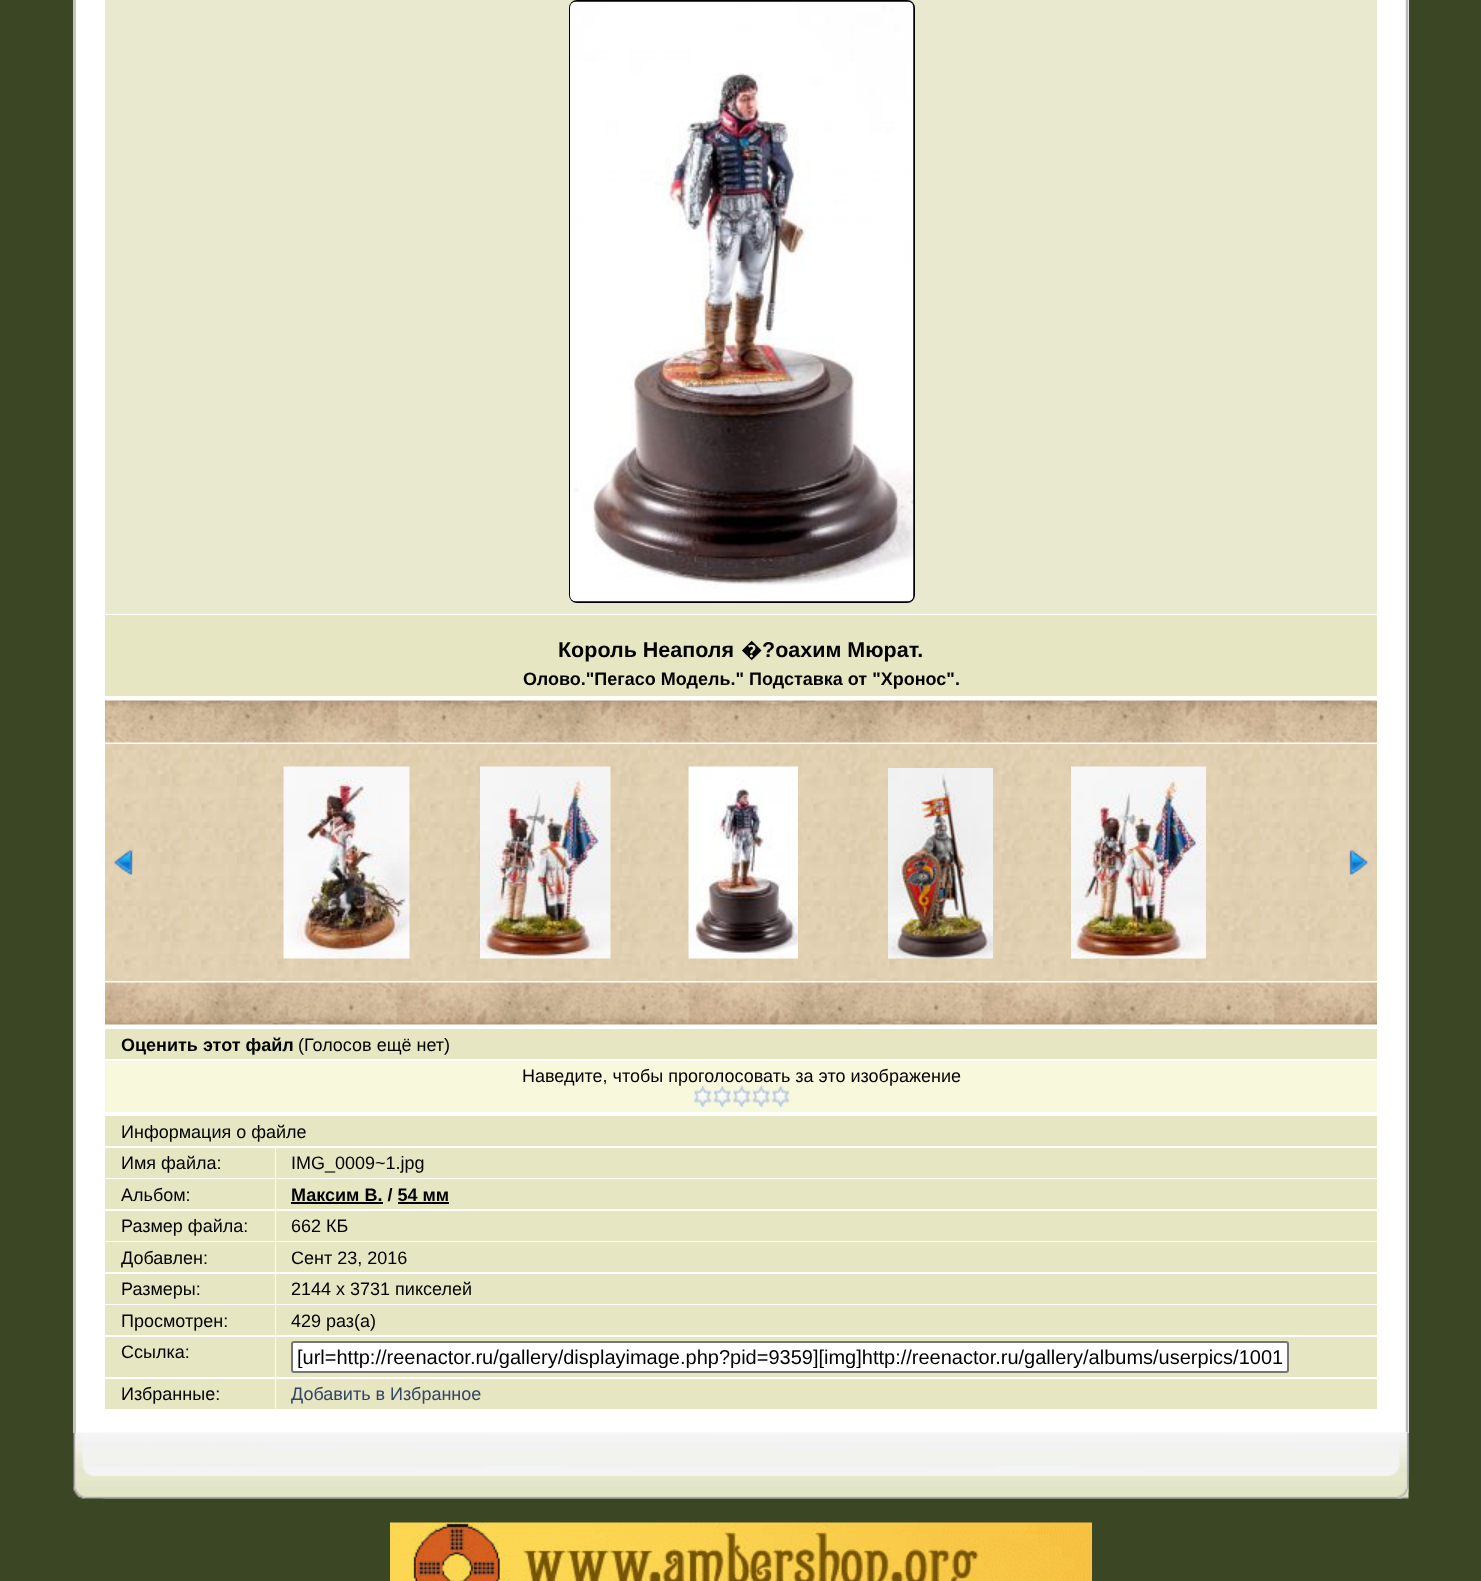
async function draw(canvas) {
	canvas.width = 1481;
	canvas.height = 1581;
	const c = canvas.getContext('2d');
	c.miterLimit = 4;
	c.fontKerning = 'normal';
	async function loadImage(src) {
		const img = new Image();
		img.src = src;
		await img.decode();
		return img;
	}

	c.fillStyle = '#3b4625';
	c.fillRect(0, 0, 1481, 1581);
	c.fillStyle = '#fff';
	c.fillRect(76, 0, 1333, 1433);
	c.fillStyle = '#c3c3c3';
	c.fillRect(73, 0, 3, 1433);
	c.drawImage(await loadImage('img1.png'), 1405, 0, 4, 1433);
	c.fillStyle = '#e9e9d0';
	c.fillRect(105, 0, 1272, 614);
	c.beginPath();
	c.roundRect(570, 1, 344, 601, 7);
	c.strokeStyle = '#000';
	c.lineWidth = 2;
	c.stroke();
	c.drawImage(await loadImage('img2.png'), 570, 1, 344, 601);
	c.fillStyle = '#e6e6c2';
	c.fillRect(105, 615, 1272, 81);
	c.font = 'bold 21.5px Liberation Sans';
	c.fillStyle = '#000';
	c.fillText('Король Неаполя', 558, 657);
	c.font = 'bold 21.5px Noto Sans';
	c.fillText('�', 741, 657);
	c.font = 'bold 21.5px Liberation Sans';
	c.fillText('?оахим Мюрат.', 762, 657);
	c.font = 'bold 18px Liberation Sans';
	c.fillText('Олово."Пегасо Модель." Подставка от "Хронос".', 523, 685);
	c.drawImage(await loadImage('img3.png'), 105, 700, 1272, 43);
	c.drawImage(await loadImage('img4.png'), 105, 744, 1272, 237);
	c.drawImage(await loadImage('img5.png'), 113, 850, 20, 25);
	c.drawImage(await loadImage('img6.png'), 283, 766, 127, 193);
	c.drawImage(await loadImage('img7.png'), 480, 766, 131, 193);
	c.drawImage(await loadImage('img8.png'), 688, 766, 110, 193);
	c.drawImage(await loadImage('img9.png'), 888, 768, 105, 191);
	c.drawImage(await loadImage('img10.png'), 1071, 766, 135, 193);
	c.drawImage(await loadImage('img11.png'), 1349, 850, 20, 25);
	c.drawImage(await loadImage('img12.png'), 105, 982, 1272, 43);
	c.fillStyle = '#e6e6c2';
	c.fillRect(105, 1029, 1272, 30);
	c.fillStyle = '#000';
	c.fillText('Оценить этот файл', 121, 1051);
	c.font = '18px Liberation Sans';
	c.fillText('(Голосов ещё нет)', 298, 1051);
	c.fillStyle = '#f8f8dc';
	c.fillRect(105, 1061, 1272, 51);
	c.fillStyle = '#000';
	c.fillText('Наведите, чтобы проголосовать за это изображение', 522, 1082);
	c.drawImage(await loadImage('img13.png'), 693, 1086, 20, 21);
	c.drawImage(await loadImage('img14.png'), 712, 1086, 20, 21);
	c.drawImage(await loadImage('img15.png'), 732, 1086, 20, 21);
	c.drawImage(await loadImage('img16.png'), 751, 1086, 20, 21);
	c.drawImage(await loadImage('img13.png'), 771, 1086, 20, 21);
	c.fillStyle = '#e6e6c2';
	c.fillRect(105, 1116, 1272, 30);
	c.fillStyle = '#000';
	c.fillText('Информация о файле', 121, 1138);
	c.fillStyle = '#e6e6c2';
	c.fillRect(105, 1148, 170, 30);
	c.fillStyle = '#000';
	c.fillText('Имя файла:', 121, 1169);
	c.fillStyle = '#e6e6c2';
	c.fillRect(276, 1148, 1101, 30);
	c.fillStyle = '#000';
	c.fillText('IMG_0009~1.jpg', 291, 1169);
	c.fillStyle = '#e6e6c2';
	c.fillRect(105, 1179, 170, 30);
	c.fillStyle = '#000';
	c.fillText('Альбом:', 121, 1201);
	c.fillStyle = '#e6e6c2';
	c.fillRect(276, 1179, 1101, 30);
	c.font = 'bold 18px Liberation Sans';
	c.fillStyle = '#000';
	c.fillText('Максим В. / 54 мм', 291, 1201);
	for (const [x, y, w, h, color] of [
		[291, 1202, 92, 2, '#000'],
		[398, 1202, 51, 2, '#000'],
		[105, 1211, 170, 30, '#e6e6c2'],
	]) {
		c.fillStyle = color;
		c.fillRect(x, y, w, h);
	}
	c.font = '18px Liberation Sans';
	c.fillStyle = '#000';
	c.fillText('Размер файла:', 121, 1232);
	c.fillStyle = '#e6e6c2';
	c.fillRect(276, 1211, 1101, 30);
	c.fillStyle = '#000';
	c.fillText('662 КБ', 291, 1232);
	c.fillStyle = '#e6e6c2';
	c.fillRect(105, 1242, 170, 30);
	c.fillStyle = '#000';
	c.fillText('Добавлен:', 121, 1264);
	c.fillStyle = '#e6e6c2';
	c.fillRect(276, 1242, 1101, 30);
	c.fillStyle = '#000';
	c.fillText('Сент 23, 2016', 291, 1264);
	c.fillStyle = '#e6e6c2';
	c.fillRect(105, 1274, 170, 30);
	c.fillStyle = '#000';
	c.fillText('Размеры:', 121, 1295);
	c.fillStyle = '#e6e6c2';
	c.fillRect(276, 1274, 1101, 30);
	c.fillStyle = '#000';
	c.fillText('2144 x 3731 пикселей', 291, 1295);
	c.fillStyle = '#e6e6c2';
	c.fillRect(105, 1305, 170, 30);
	c.fillStyle = '#000';
	c.fillText('Просмотрен:', 121, 1327);
	c.fillStyle = '#e6e6c2';
	c.fillRect(276, 1305, 1101, 30);
	c.fillStyle = '#000';
	c.fillText('429 раз(а)', 291, 1327);
	c.fillStyle = '#e6e6c2';
	c.fillRect(105, 1337, 170, 40);
	c.fillStyle = '#000';
	c.fillText('Ссылка:', 121, 1358);
	c.fillStyle = '#e6e6c2';
	c.fillRect(276, 1337, 1101, 40);
	c.fillStyle = '#fff';
	c.beginPath();
	c.roundRect(292, 1342, 996, 30, 2);
	c.fill();
	c.strokeStyle = '#767676';
	c.stroke();
	c.save();
	c.beginPath();
	c.rect(297, 1346, 986, 22);
	c.clip();
	c.font = '20px Liberation Sans';
	c.fillStyle = '#000';
	c.fillText('[url=http://reenactor.ru/gallery/displayimage.php?pid=9359][img]http://reenactor.ru/gallery/albums/userpics/1001', 297, 1364);
	c.restore();
	c.fillStyle = '#e6e6c2';
	c.fillRect(105, 1379, 170, 30);
	c.fillStyle = '#000';
	c.fillText('Избранные:', 121, 1400);
	c.fillStyle = '#e6e6c2';
	c.fillRect(276, 1379, 1101, 30);
	c.fillStyle = '#346';
	c.fillText('Добавить в Избранное', 291, 1400);
	c.drawImage(await loadImage('img17.png'), 73, 1432, 1336, 67);
	c.drawImage(await loadImage('img18.png'), 103, 1432, 1306, 67);
	c.drawImage(await loadImage('img19.png'), 390, 1522, 702, 59);
}

draw(document.querySelector('canvas'));
